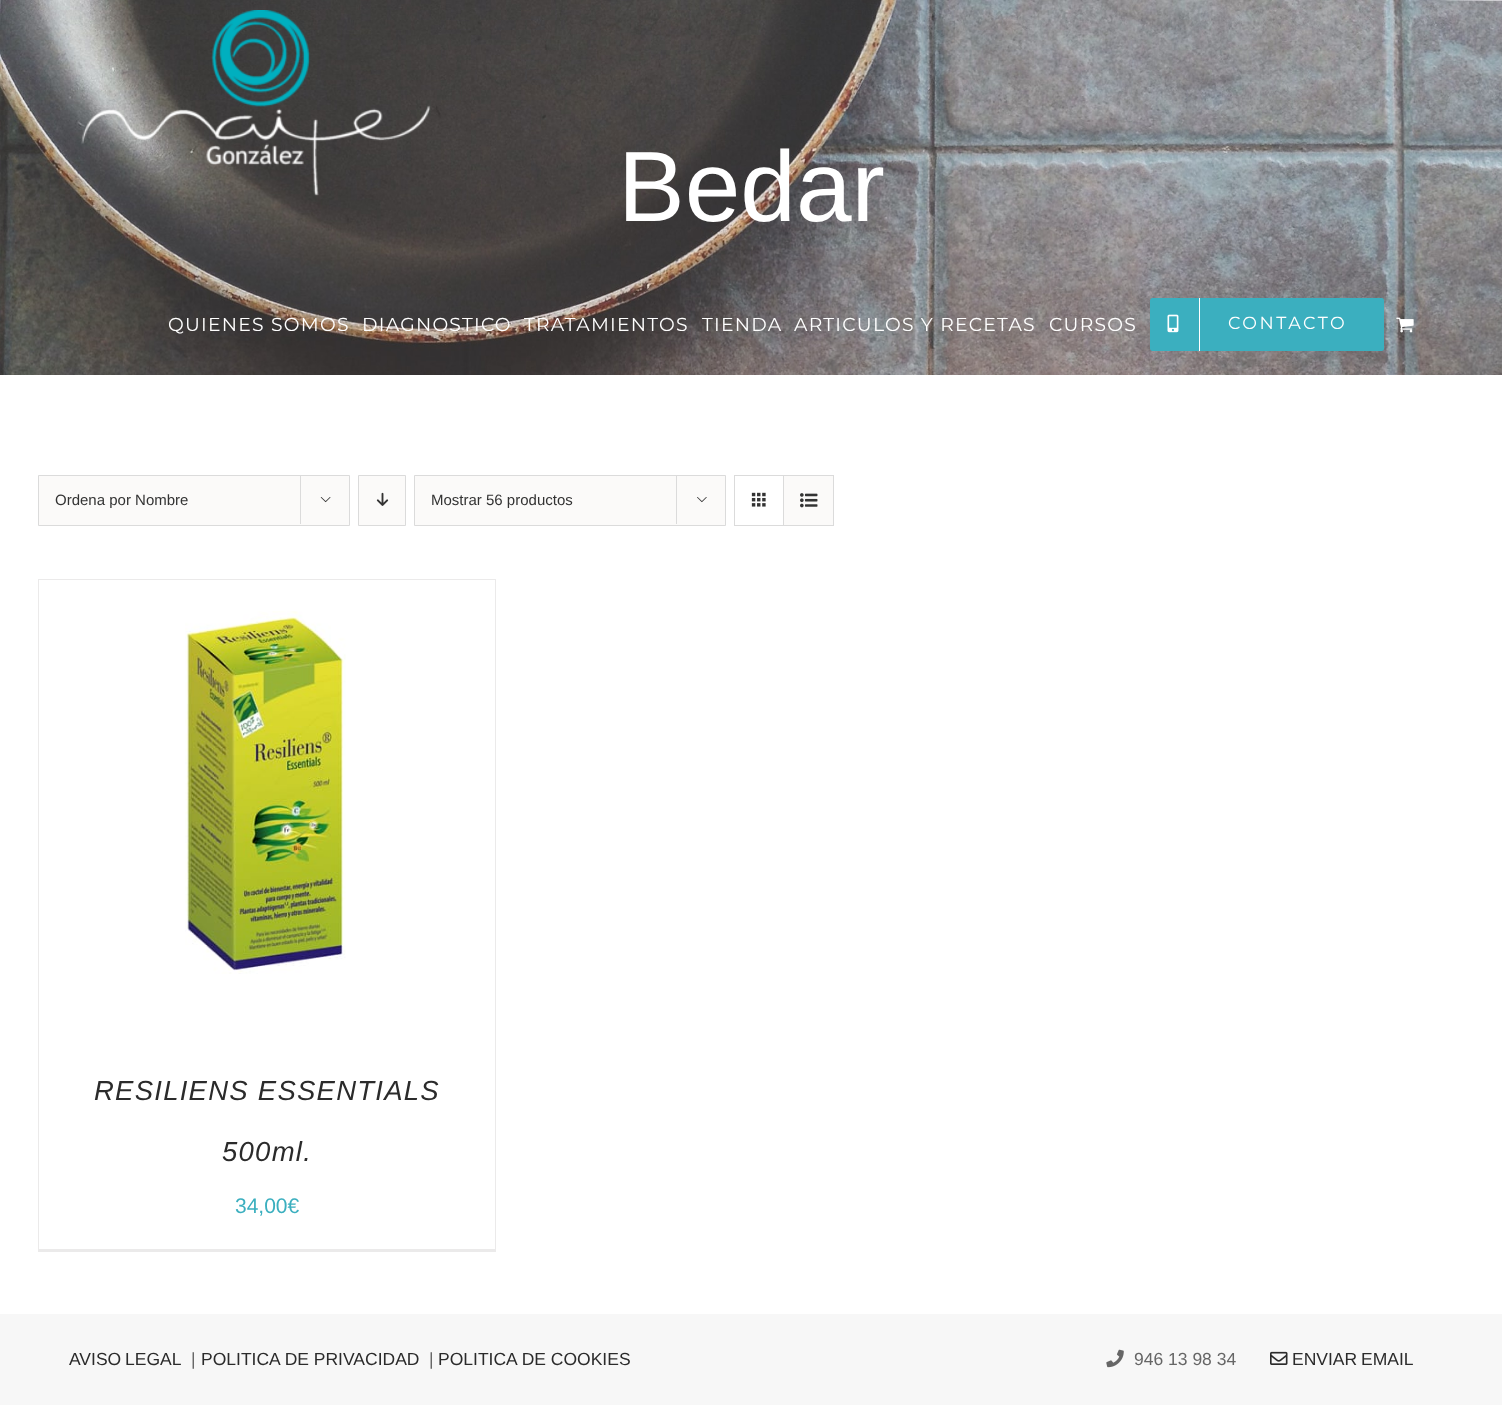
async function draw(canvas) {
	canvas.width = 1502;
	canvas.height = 1419;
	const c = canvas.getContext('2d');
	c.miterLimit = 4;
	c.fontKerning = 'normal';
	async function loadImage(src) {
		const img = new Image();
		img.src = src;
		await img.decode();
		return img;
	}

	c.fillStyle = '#fff';
	c.fillRect(0, 0, 1502, 1419);
	c.drawImage(await loadImage('img1.png'), 0, 0, 1502, 375);
	c.font = '100px Liberation Sans';
	c.fillText('Bedar', 618, 221);
	c.drawImage(await loadImage('img2.png'), 81, 10, 350, 186);
	c.letterSpacing = '1.25px';
	c.font = '100 18.75px Montserrat';
	for (const [text, x, y] of [
		['QUIENES SOMOS', 168, 331],
		['DIAGNOSTICO', 362, 331],
		['TRATAMIENTOS', 524, 331],
		['TIENDA', 702, 331],
		['ARTICULOS Y RECETAS', 794, 331],
		['CURSOS', 1049, 331],
	]) {
		c.fillText(text, x, y);
	}
	c.fillStyle = '#3bafbf';
	c.beginPath();
	c.roundRect(1150, 298, 234, 53, 2.5);
	c.fill();
	c.fillStyle = '#fff';
	c.fillRect(1199, 298, 1, 53);
	c.drawImage(await loadImage('img3.png'), 1167, 314, 12, 19);
	c.letterSpacing = '2.5px';
	c.font = '100 17.5px Montserrat';
	c.fillText('CONTACTO', 1228, 329);
	c.drawImage(await loadImage('img4.png'), 1396, 317, 18, 16);
	c.fillStyle = '#fbfaf9';
	c.beginPath();
	c.rect(38.5, 475.5, 311, 50);
	c.fill();
	c.strokeStyle = '#dbdbdb';
	c.stroke();
	c.letterSpacing = '0px';
	c.font = '15px Liberation Sans';
	c.fillStyle = '#333';
	c.fillText('Ordena por Nombre', 55, 505);
	c.fillStyle = '#dbdbdb';
	c.fillRect(300, 475, 1, 49);
	c.drawImage(await loadImage('img5.png'), 320, 497, 11, 6);
	c.fillStyle = '#fbfaf9';
	c.beginPath();
	c.rect(358.5, 475.5, 47, 50);
	c.fill();
	c.stroke();
	c.drawImage(await loadImage('img6.png'), 376, 492, 13, 14);
	c.beginPath();
	c.rect(414.5, 475.5, 311, 50);
	c.fill();
	c.stroke();
	c.fillStyle = '#333';
	c.fillText('Mostrar 56 productos', 431, 505);
	c.fillStyle = '#dbdbdb';
	c.fillRect(676, 475, 1, 49);
	c.drawImage(await loadImage('img7.png'), 697, 497, 10, 6);
	c.strokeRect(734.5, 475.5, 99, 50);
	c.fillRect(783, 476, 1, 49);
	c.drawImage(await loadImage('img8.png'), 751, 492, 15, 15);
	c.fillStyle = '#fbfaf9';
	c.fillRect(784, 476, 49, 49);
	c.drawImage(await loadImage('img9.png'), 800, 493, 18, 15);
	for (const [x, y, w, h, color] of [
		[38, 579, 458, 1, '#ebeaea'],
		[495, 579, 1, 672, '#ebeaea'],
		[38, 1249, 458, 3, '#ebeaea'],
		[38, 579, 1, 672, '#ebeaea'],
	]) {
		c.fillStyle = color;
		c.fillRect(x, y, w, h);
	}
	c.drawImage(await loadImage('img10.png'), 185, 611, 161, 363);
	c.letterSpacing = '1.25px';
	c.font = 'italic 27.5px Liberation Sans';
	c.fillStyle = '#2b2b2b';
	c.fillText('RESILIENS ESSENTIALS', 94, 1100);
	c.fillText('500ml.', 222, 1161);
	c.letterSpacing = '0px';
	c.font = '21px Liberation Sans';
	c.fillStyle = '#3bafbf';
	c.fillText('34,00€', 235, 1213);
	c.fillStyle = '#f7f7f7';
	c.fillRect(0, 1314, 1502, 91);
	c.wordSpacing = '-1px';
	c.font = '17.5px Liberation Sans';
	c.fillStyle = '#2b2b2b';
	c.fillText('AVISO LEGAL', 69, 1365);
	c.wordSpacing = '0px';
	c.fillStyle = '#666';
	c.fillText('|', 191, 1365);
	c.fillStyle = '#2b2b2b';
	c.fillText('POLITICA DE PRIVACIDAD', 201, 1365);
	c.fillStyle = '#666';
	c.fillText('|', 429, 1365);
	c.fillStyle = '#2b2b2b';
	c.fillText('POLITICA DE COOKIES', 438, 1365);
	c.drawImage(await loadImage('img11.png'), 1106, 1349, 18, 19);
	c.fillStyle = '#666';
	c.fillText('946 13 98 34', 1134, 1365);
	c.drawImage(await loadImage('img12.png'), 1270, 1351, 18, 14);
	c.wordSpacing = '-1px';
	c.fillStyle = '#2b2b2b';
	c.fillText('ENVIAR EMAIL', 1292, 1365);
}

draw(document.querySelector('canvas'));
